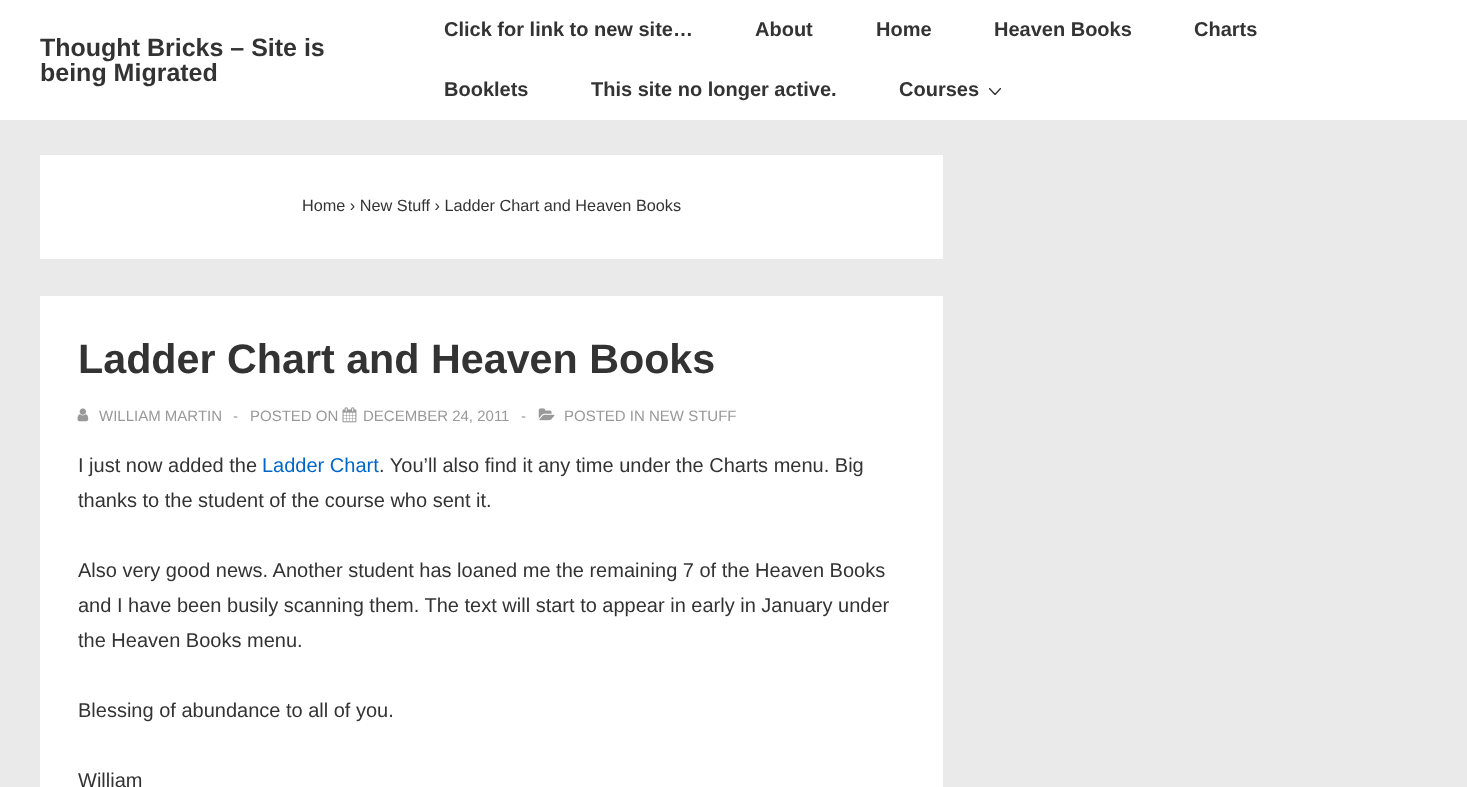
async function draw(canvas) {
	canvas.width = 1467;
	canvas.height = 787;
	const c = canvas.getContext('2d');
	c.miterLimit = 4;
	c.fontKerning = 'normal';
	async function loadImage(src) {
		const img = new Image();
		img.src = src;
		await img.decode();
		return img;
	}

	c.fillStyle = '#eaeaea';
	c.fillRect(0, 0, 1467, 787);
	c.fillStyle = '#fff';
	c.fillRect(0, 0, 1467, 120);
	c.font = 'bold 25px Liberation Sans';
	c.fillStyle = '#333';
	c.fillText('Thought Bricks – Site is', 40, 56);
	c.fillText('being Migrated', 40, 81);
	c.font = 'bold 20px Liberation Sans';
	for (const [text, x, y] of [
		['Click for link to new site…', 444, 36],
		['About', 755, 36],
		['Home', 876, 36],
		['Heaven Books', 994, 36],
		['Charts', 1194, 36],
		['Booklets', 444, 96],
		['This site no longer active.', 591, 96],
		['Courses', 899, 96],
	]) {
		c.fillText(text, x, y);
	}
	c.save();
	c.beginPath();
	c.rect(989, 88, 12, 7);
	c.clip();
	c.beginPath();
	c.moveTo(989, 88);
	c.lineTo(995, 94.5);
	c.lineTo(1001, 88);
	c.strokeStyle = '#333';
	c.lineWidth = 1.4;
	c.lineCap = 'round';
	c.stroke();
	c.restore();
	c.fillStyle = '#fff';
	c.fillRect(40, 155, 903, 104);
	c.font = '16.25px Liberation Sans';
	c.fillStyle = '#333';
	c.fillText('Home › New Stuff › Ladder Chart and Heaven Books', 302, 211);
	c.fillStyle = '#fff';
	c.fillRect(40, 296, 903, 491);
	c.font = 'bold 41.25px Liberation Sans';
	c.fillStyle = '#333';
	c.fillText('Ladder Chart and Heaven Books', 78, 373);
	c.drawImage(await loadImage('img1.png'), 77, 408, 12, 14);
	c.font = '15px Liberation Sans';
	c.fillStyle = '#999';
	for (const [text, x, y] of [
		['WILLIAM MARTIN', 99, 421],
		['-', 233, 421],
		['POSTED ON', 250, 421],
	]) {
		c.fillText(text, x, y);
	}
	c.drawImage(await loadImage('img2.png'), 342, 407, 15, 16);
	c.fillText('DECEMBER 24, 2011', 363, 421);
	c.fillText('-', 521, 421);
	c.drawImage(await loadImage('img3.png'), 538, 408, 17, 13);
	c.fillText('POSTED IN NEW STUFF', 564, 421);
	c.font = '20px Liberation Sans';
	c.fillStyle = '#333';
	c.fillText('I just now added the', 78, 472);
	c.fillStyle = '#06c';
	c.fillText('Ladder Chart', 262, 472);
	c.fillStyle = '#333';
	for (const [text, x, y] of [
		['. You’ll also find it any time under the Charts menu. Big', 379, 472],
		['thanks to the student of the course who sent it.', 78, 507],
		['Also very good news. Another student has loaned me the remaining 7 of the Heaven Books', 78, 577],
		['and I have been busily scanning them. The text will start to appear in early in January under', 78, 612],
		['the Heaven Books menu.', 78, 647],
		['Blessing of abundance to all of you.', 78, 717],
		['William', 78, 787],
	]) {
		c.fillText(text, x, y);
	}
}

draw(document.querySelector('canvas'));
